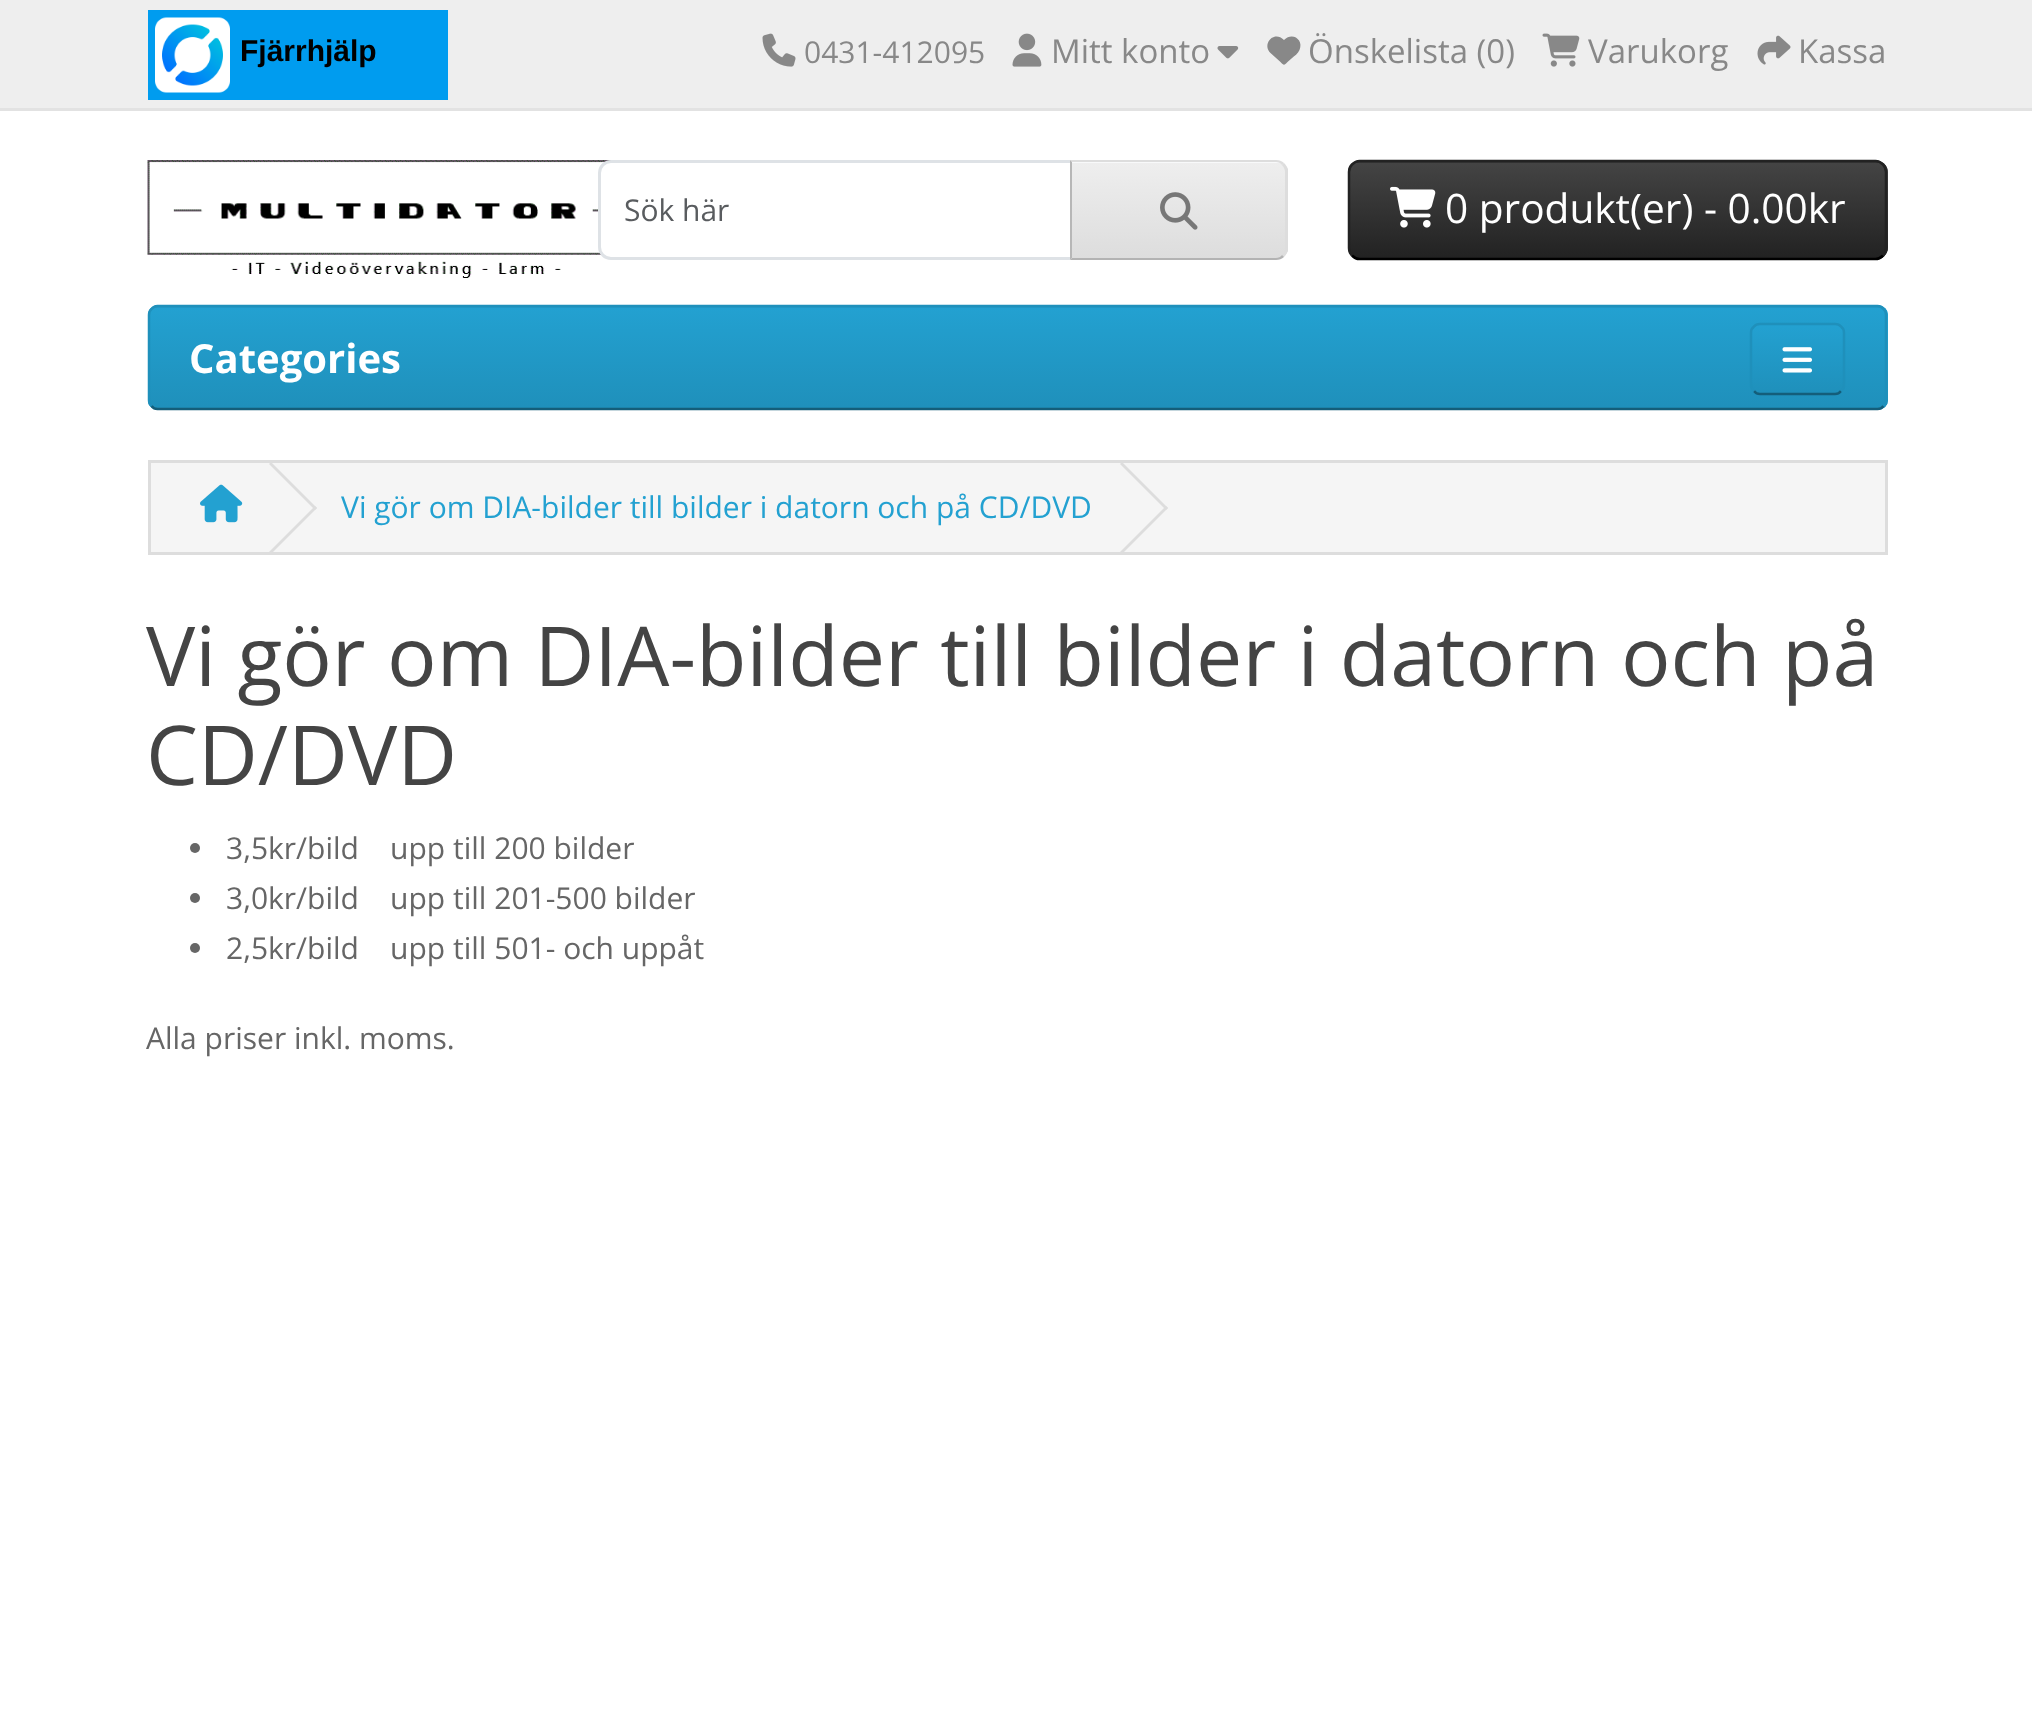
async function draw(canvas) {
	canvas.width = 2032;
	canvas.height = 1729;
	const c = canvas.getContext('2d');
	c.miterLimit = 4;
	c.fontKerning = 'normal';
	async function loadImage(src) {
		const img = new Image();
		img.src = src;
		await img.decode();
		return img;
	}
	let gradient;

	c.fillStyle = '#fff';
	c.fillRect(0, 0, 2032, 1729);
	for (const [x, y, w, h, color] of [
		[0, 0, 2032, 108, '#eee'],
		[0, 108, 2032, 3, '#e2e2e2'],
		[148, 10, 300, 90, '#009cef'],
	]) {
		c.fillStyle = color;
		c.fillRect(x, y, w, h);
	}
	c.drawImage(await loadImage('img1.png'), 155, 17, 75, 76);
	c.font = 'bold 30px Liberation Sans';
	c.fillStyle = '#000';
	c.fillText('Fjärrhjälp', 240, 61);
	c.drawImage(await loadImage('img2.png'), 762, 33, 34, 34);
	c.font = '30px Open Sans';
	c.fillStyle = '#888';
	c.fillText('0431-412095', 804, 63);
	c.drawImage(await loadImage('img3.png'), 1012, 33, 30, 34);
	c.font = '33px Open Sans';
	c.fillText('Mitt konto', 1051, 63);
	c.drawImage(await loadImage('img4.png'), 1217, 46, 22, 13);
	c.beginPath();
	c.moveTo(1270.5, 53);
	c.lineTo(1280.5, 62);
	c.bezierCurveTo(1284, 65.5, 1284, 65.5, 1287.5, 62);
	c.lineTo(1291.5, 58.5);
	c.bezierCurveTo(1294.5, 56, 1298, 53.5, 1299.5, 50);
	c.bezierCurveTo(1304, 40, 1292.5, 31.5, 1284, 40);
	c.bezierCurveTo(1274, 30, 1261.5, 44, 1270.5, 53);
	c.closePath();
	c.fill();
	c.fillText('Önskelista (0)', 1308, 63);
	c.drawImage(await loadImage('img5.png'), 1542, 33, 38, 34);
	c.fillText('Varukorg', 1588, 63);
	c.drawImage(await loadImage('img6.png'), 1757, 35, 34, 30);
	c.fillText('Kassa', 1798, 63);
	c.drawImage(await loadImage('img7.png'), 147, 160, 501, 118);
	c.fillStyle = '#fff';
	c.beginPath();
	c.roundRect(599.5, 161.5, 472, 97, [11.5, 0, 0, 11.5]);
	c.fill();
	c.strokeStyle = '#dee2e6';
	c.lineWidth = 3;
	c.stroke();
	c.font = '30px Open Sans';
	c.fillStyle = '#595c5f';
	c.fillText('Sök här', 624, 221);
	c.fillStyle = '#f8f9fa';
	c.beginPath();
	c.roundRect(1070, 160, 218, 100, [0, 13, 13, 0]);
	c.fill();
	c.save();
	c.beginPath();
	c.roundRect(1070, 160, 218, 100, [0, 13, 13, 0]);
	c.clip();
	gradient = c.createLinearGradient(1179, 163, 1179, 258);
	gradient.addColorStop(0, '#eee');
	gradient.addColorStop(1, '#ddd');
	c.fillStyle = gradient;
	c.fillRect(1072, 163, 216, 95);
	c.restore();
	c.fillStyle = '#ddd';
	c.beginPath();
	c.moveTo(1070, 160);
	c.lineTo(1072, 162);
	c.lineTo(1276, 162);
	c.bezierCurveTo(1278, 162, 1281, 163, 1282, 165);
	c.lineTo(1284, 163);
	c.bezierCurveTo(1282, 161, 1279, 160, 1276, 160);
	c.closePath();
	c.fill();
	c.beginPath();
	c.moveTo(1288, 251);
	c.bezierCurveTo(1287, 253, 1286, 255, 1284, 257);
	c.lineTo(1282, 255);
	c.bezierCurveTo(1284, 253, 1285, 250, 1285, 248);
	c.lineTo(1285, 172);
	c.bezierCurveTo(1285, 170, 1284, 167, 1282, 165);
	c.lineTo(1284, 163);
	c.bezierCurveTo(1286, 165, 1287, 167, 1288, 169);
	c.closePath();
	c.fill();
	c.fillStyle = '#b3b3b3';
	c.beginPath();
	c.moveTo(1276, 260);
	c.bezierCurveTo(1279, 260, 1282, 259, 1284, 257);
	c.lineTo(1282, 255);
	c.bezierCurveTo(1281, 257, 1278, 258, 1276, 258);
	c.lineTo(1072, 258);
	c.lineTo(1070, 260);
	c.closePath();
	c.fill();
	c.fillStyle = '#b7b7b7';
	c.beginPath();
	c.moveTo(1070, 160);
	c.lineTo(1070, 260);
	c.lineTo(1072, 258);
	c.lineTo(1072, 162);
	c.closePath();
	c.fill();
	c.drawImage(await loadImage('img8.png'), 1160, 192, 38, 38);
	c.fillStyle = '#363636';
	c.beginPath();
	c.roundRect(1348, 160, 540, 100, 13);
	c.fill();
	c.save();
	c.beginPath();
	c.roundRect(1348, 160, 540, 100, 13);
	c.clip();
	gradient = c.createLinearGradient(1618, 162, 1618, 258);
	gradient.addColorStop(0, '#444');
	gradient.addColorStop(1, '#222');
	c.fillStyle = gradient;
	c.fillRect(1348, 163, 540, 95);
	c.restore();
	c.beginPath();
	c.moveTo(1883, 255.5);
	c.bezierCurveTo(1881, 257.5, 1878.5, 259, 1875.5, 259);
	c.lineTo(1359.5, 259);
	c.bezierCurveTo(1356.5, 259, 1354, 257.5, 1352, 255.5);
	c.strokeStyle = '#000';
	c.lineWidth = 2.5;
	c.stroke();
	c.beginPath();
	c.moveTo(1352, 255.5);
	c.bezierCurveTo(1350, 253.5, 1349, 251, 1349, 248);
	c.lineTo(1349, 172);
	c.bezierCurveTo(1349, 169, 1350, 166.5, 1352, 164.5);
	c.bezierCurveTo(1354, 162.5, 1356.5, 161, 1359.5, 161);
	c.lineTo(1875.5, 161);
	c.bezierCurveTo(1878.5, 161, 1881, 162.5, 1883, 164.5);
	c.bezierCurveTo(1885, 166.5, 1886, 169, 1886, 172);
	c.lineTo(1886, 248);
	c.bezierCurveTo(1886, 251, 1885, 253.5, 1883, 255.5);
	c.strokeStyle = '#222';
	c.stroke();
	c.drawImage(await loadImage('img9.png'), 1390, 186, 46, 42);
	c.font = '40.6px Open Sans';
	c.fillStyle = '#fff';
	c.fillText('0 produkt(er) - 0.00kr', 1445, 223);
	c.fillStyle = '#229ac8';
	c.beginPath();
	c.roundRect(148, 305, 1740, 105, 10);
	c.fill();
	c.save();
	c.beginPath();
	c.roundRect(148, 305, 1740, 105, 10);
	c.clip();
	gradient = c.createLinearGradient(1018, 307, 1018, 408);
	gradient.addColorStop(0, '#23a1d1');
	gradient.addColorStop(1, '#1f90bb');
	c.fillStyle = gradient;
	c.fillRect(148, 308, 1740, 100);
	c.restore();
	c.beginPath();
	c.moveTo(1883.5, 406);
	c.bezierCurveTo(1882, 408, 1880, 409, 1877.5, 409);
	c.lineTo(157.5, 409);
	c.bezierCurveTo(155, 409, 153, 408, 151.5, 406);
	c.strokeStyle = '#145e7a';
	c.stroke();
	c.beginPath();
	c.moveTo(151.5, 406);
	c.bezierCurveTo(149.5, 404.5, 149, 402.5, 149, 400);
	c.lineTo(149, 315);
	c.bezierCurveTo(149, 312.5, 149.5, 310.5, 151.5, 309);
	c.bezierCurveTo(153, 307, 155, 306, 157.5, 306);
	c.lineTo(1877.5, 306);
	c.bezierCurveTo(1880, 306, 1882, 307, 1883.5, 309);
	c.bezierCurveTo(1885.5, 310.5, 1886, 312.5, 1886, 315);
	c.lineTo(1886, 400);
	c.bezierCurveTo(1886, 402.5, 1885.5, 404.5, 1883.5, 406);
	c.strokeStyle = '#1f90bb';
	c.stroke();
	c.font = 'bold 40px Open Sans';
	c.fillStyle = '#fff';
	c.fillText('Categories', 189, 373);
	c.save();
	c.beginPath();
	c.roundRect(1750, 323, 95, 72, 10);
	c.clip();
	gradient = c.createLinearGradient(1798, 325, 1798, 393);
	gradient.addColorStop(0, '#23a1d1');
	gradient.addColorStop(1, '#1f90bb');
	c.fillStyle = gradient;
	c.fillRect(1750, 325, 95, 68);
	c.restore();
	c.beginPath();
	c.moveTo(1841, 391);
	c.bezierCurveTo(1839.5, 393, 1837.5, 394, 1835, 394);
	c.lineTo(1760, 394);
	c.bezierCurveTo(1757.5, 394, 1755.5, 393, 1754, 391);
	c.strokeStyle = '#145e7a';
	c.stroke();
	c.beginPath();
	c.moveTo(1754, 391);
	c.bezierCurveTo(1752, 389.5, 1751, 387.5, 1751, 385);
	c.lineTo(1751, 332.5);
	c.bezierCurveTo(1751, 330, 1752, 328, 1754, 326.5);
	c.bezierCurveTo(1755.5, 324.5, 1757.5, 324, 1760, 324);
	c.lineTo(1835, 324);
	c.bezierCurveTo(1837.5, 324, 1839.5, 324.5, 1841, 326.5);
	c.bezierCurveTo(1843, 328, 1844, 330, 1844, 332.5);
	c.lineTo(1844, 385);
	c.bezierCurveTo(1844, 387.5, 1843, 389.5, 1841, 391);
	c.strokeStyle = '#1f90bb';
	c.stroke();
	c.drawImage(await loadImage('img10.png'), 1782, 347, 30, 26);
	c.fillStyle = '#f5f5f5';
	c.beginPath();
	c.rect(149.5, 461.5, 1737, 92);
	c.fill();
	c.strokeStyle = '#ddd';
	c.lineWidth = 3;
	c.stroke();
	c.drawImage(await loadImage('img11.png'), 200, 484, 43, 39);
	c.fillStyle = '#ddd';
	c.beginPath();
	c.moveTo(269, 464);
	c.lineTo(271, 462);
	c.lineTo(317, 508);
	c.lineTo(315, 510);
	c.closePath();
	c.fill();
	c.beginPath();
	c.moveTo(269, 552);
	c.lineTo(315, 506);
	c.lineTo(317, 508);
	c.lineTo(271, 554);
	c.closePath();
	c.fill();
	c.font = '30px Open Sans';
	c.fillStyle = '#23a1d1';
	c.fillText('Vi gör om DIA-bilder till bilder i datorn och på CD/DVD', 341, 518);
	c.fillStyle = '#ddd';
	c.beginPath();
	c.moveTo(1120, 464);
	c.lineTo(1122, 462);
	c.lineTo(1168, 508);
	c.lineTo(1166, 510);
	c.closePath();
	c.fill();
	c.beginPath();
	c.moveTo(1120, 552);
	c.lineTo(1166, 506);
	c.lineTo(1168, 508);
	c.lineTo(1122, 554);
	c.closePath();
	c.fill();
	c.font = '82.5px Open Sans';
	c.fillStyle = '#444';
	c.fillText('Vi gör om DIA-bilder till bilder i datorn och på', 146, 686);
	c.fillText('CD/DVD', 146, 785);
	c.fillStyle = '#666';
	c.beginPath();
	c.arc(195, 848, 5, 0, 2 * Math.PI);
	c.fill();
	c.font = '30px Open Sans';
	c.fillText('3,5kr/bild    upp till 200 bilder', 226, 859);
	c.beginPath();
	c.arc(195, 898, 5, 0, 2 * Math.PI);
	c.fill();
	c.fillText('3,0kr/bild    upp till 201-500 bilder', 226, 909);
	c.beginPath();
	c.arc(195, 948, 5, 0, 2 * Math.PI);
	c.fill();
	c.fillText('2,5kr/bild    upp till 501- och uppåt', 226, 959);
	c.fillText('Alla priser inkl. moms.', 146, 1049);
}

draw(document.querySelector('canvas'));
